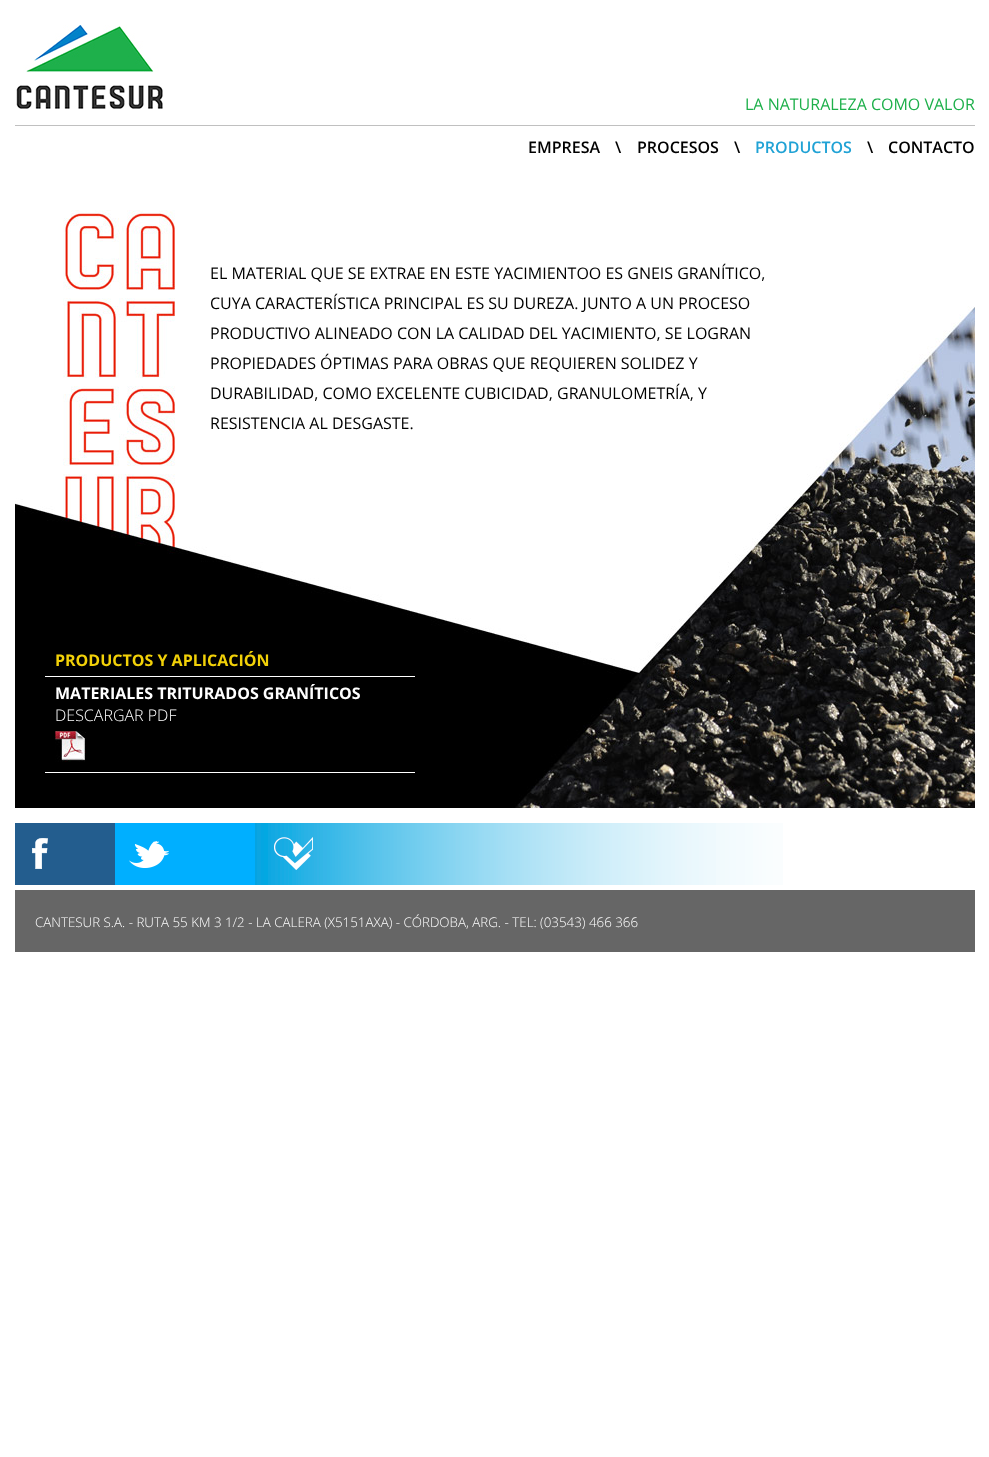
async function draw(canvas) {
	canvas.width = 989;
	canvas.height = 1457;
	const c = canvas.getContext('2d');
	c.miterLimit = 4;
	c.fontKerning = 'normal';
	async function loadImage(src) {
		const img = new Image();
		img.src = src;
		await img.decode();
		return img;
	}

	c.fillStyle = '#fff';
	c.fillRect(0, 0, 989, 1457);
	c.drawImage(await loadImage('img1.png'), 16, 25, 147, 84);
	c.font = '16px Open Sans';
	c.fillStyle = '#1eb04b';
	c.fillText('LA NATURALEZA COMO VALOR', 745, 110);
	c.fillStyle = '#c0c0c0';
	c.fillRect(15, 125, 960, 1);
	c.font = '600 16px Open Sans';
	c.fillStyle = '#000';
	for (const [text, x, y] of [
		['EMPRESA', 528, 153],
		['\\', 615, 153],
		['PROCESOS', 637, 153],
		['\\', 734, 153],
	]) {
		c.fillText(text, x, y);
	}
	c.fillStyle = '#20a2d5';
	c.fillText('PRODUCTOS', 755, 153);
	c.fillStyle = '#000';
	c.fillText('\\', 867, 153);
	c.fillText('CONTACTO', 888, 153);
	c.drawImage(await loadImage('img2.png'), 15, 210, 960, 598);
	c.font = '16px Open Sans';
	for (const [text, x, y] of [
		['EL MATERIAL QUE SE EXTRAE EN ESTE YACIMIENTOO ES GNEIS GRANÍTICO,', 210, 279],
		['CUYA CARACTERÍSTICA PRINCIPAL ES SU DUREZA. JUNTO A UN PROCESO', 210, 309],
		['PRODUCTIVO ALINEADO CON LA CALIDAD DEL YACIMIENTO, SE LOGRAN', 210, 339],
		['PROPIEDADES ÓPTIMAS PARA OBRAS QUE REQUIEREN SOLIDEZ Y', 210, 369],
		['DURABILIDAD, COMO EXCELENTE CUBICIDAD, GRANULOMETRÍA, Y', 210, 399],
		['RESISTENCIA AL DESGASTE.', 210, 429],
	]) {
		c.fillText(text, x, y);
	}
	c.fillStyle = '#fff';
	c.fillRect(45, 676, 370, 1);
	c.font = 'bold 16px Open Sans';
	c.fillStyle = '#f2d108';
	c.fillText('PRODUCTOS Y APLICACIÓN', 55, 666);
	c.fillStyle = '#fff';
	c.fillRect(45, 772, 370, 1);
	c.fillText('MATERIALES TRITURADOS GRANÍTICOS', 55, 699);
	c.font = '300 16px Open Sans';
	c.fillText('DESCARGAR PDF', 55, 721);
	c.drawImage(await loadImage('img3.png'), 55, 731, 31, 31);
	c.fillStyle = '#235d8e';
	c.fillRect(15, 823, 100, 62);
	c.drawImage(await loadImage('img4.png'), 32, 838, 16, 31);
	c.fillStyle = '#00afff';
	c.fillRect(115, 823, 140, 62);
	c.drawImage(await loadImage('img5.png'), 129, 841, 40, 27);
	c.drawImage(await loadImage('img6.png'), 255, 823, 528, 62);
	c.fillStyle = '#666';
	c.fillRect(15, 890, 960, 62);
	c.font = '300 13.35px Open Sans';
	c.fillStyle = '#fff';
	c.fillText('CANTESUR S.A. - RUTA 55 KM 3 1/2 - LA CALERA (X5151AXA) - CÓRDOBA, ARG. - TEL: (03543) 466 366', 35, 927);
}

draw(document.querySelector('canvas'));
